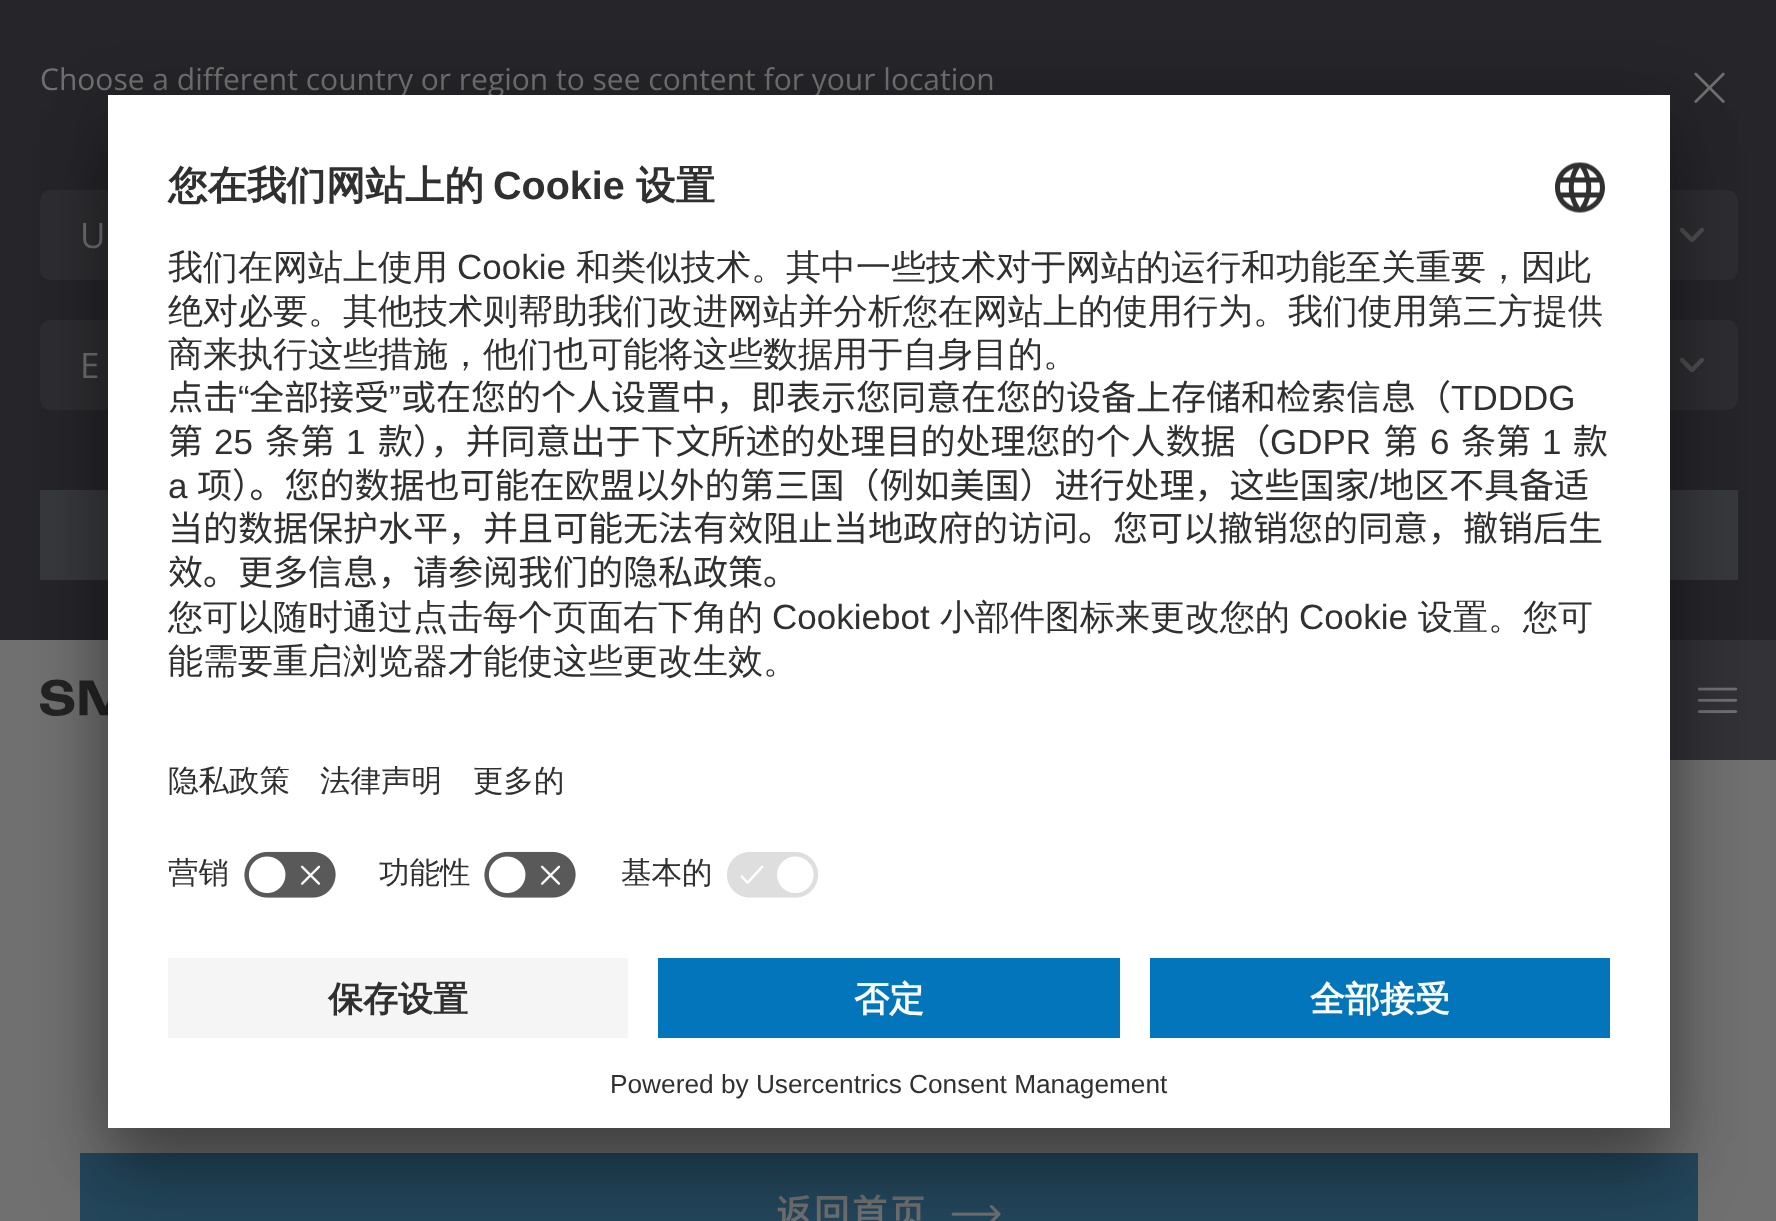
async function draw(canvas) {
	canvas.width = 1776;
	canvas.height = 1221;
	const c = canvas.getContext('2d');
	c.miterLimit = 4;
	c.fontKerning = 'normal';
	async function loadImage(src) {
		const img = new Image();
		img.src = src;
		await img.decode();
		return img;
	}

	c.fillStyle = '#707070';
	c.fillRect(0, 0, 1776, 1221);
	c.fillStyle = '#26262a';
	c.fillRect(0, 0, 1776, 640);
	c.font = '30px Open Sans';
	c.fillStyle = '#707070';
	c.fillText('Choose a different country or region to see content for your location', 40, 90);
	c.fillStyle = '#2e2d31';
	c.beginPath();
	c.roundRect(40, 190, 1698, 90, 10);
	c.fill();
	c.font = '35px Open Sans';
	c.fillStyle = '#707070';
	c.fillText('U', 80, 248);
	c.drawImage(await loadImage('img1.png'), 1679, 227, 26, 16);
	c.fillStyle = '#2e2d31';
	c.beginPath();
	c.roundRect(40, 320, 1698, 90, 10);
	c.fill();
	c.fillStyle = '#707070';
	c.fillText('E', 80, 378);
	c.drawImage(await loadImage('img1.png'), 1679, 357, 26, 16);
	c.fillStyle = '#38393d';
	c.fillRect(40, 490, 1698, 90);
	c.drawImage(await loadImage('img2.png'), 1694, 72, 31, 31);
	c.drawImage(await loadImage('img3.png'), 40, 679, 68, 37);
	c.fillStyle = '#323237';
	c.fillRect(1670, 640, 106, 120);
	c.drawImage(await loadImage('img4.png'), 1697, 687, 41, 26);
	c.fillStyle = '#24475c';
	c.fillRect(80, 1153, 1618, 68);
	c.letterSpacing = '3px';
	c.font = 'bold 35px Noto Sans CJK SC';
	c.fillStyle = '#707070';
	c.fillText('返回首页', 776, 1225);
	c.drawImage(await loadImage('img5.png'), 951, 1205, 50, 16);
	c.fillStyle = '#0000004d';
	c.filter = 'blur(35px)';
	c.beginPath();
	c.rect(108, 145, 1562, 1033);
	c.fill();
	c.filter = 'none';
	c.fillStyle = '#00000038';
	c.filter = 'blur(32.5px)';
	c.beginPath();
	c.rect(108, 108, 1562, 1032);
	c.fill();
	c.filter = 'none';
	c.fillStyle = '#fff';
	c.fillRect(108, 95, 1562, 1033);
	c.letterSpacing = '0px';
	c.font = 'bold 39.5px WenQuanYi Zen Hei';
	c.fillStyle = '#303030';
	c.fillText('您在我们网站上的', 168, 199);
	c.font = 'bold 39.5px Liberation Sans';
	c.fillText('Cookie', 493, 199);
	c.font = 'bold 39.5px WenQuanYi Zen Hei';
	c.fillText('设置', 636, 199);
	c.drawImage(await loadImage('img6.png'), 1555, 162, 50, 51);
	c.font = '500 35px WenQuanYi Zen Hei';
	c.fillText('我们在网站上使用', 168, 279);
	c.font = '35px Liberation Sans';
	c.fillText('Cookie', 457, 279);
	c.font = '500 35px WenQuanYi Zen Hei';
	for (const [text, x, y] of [
		['和类似技术。其中一些技术对于网站的运行和功能至关重要，因此', 576, 279],
		['绝对必要。其他技术则帮助我们改进网站并分析您在网站上的使用行为。我们使用第三方提供', 168, 323],
		['商来执行这些措施，他们也可能将这些数据用于自身目的。', 168, 366],
	]) {
		c.fillText(text, x, y);
	}
	c.font = '35px Noto Sans CJK SC';
	c.fillText('点击', 168, 410);
	c.font = '35px Liberation Sans';
	c.fillText('“', 238, 410);
	c.font = '35px Noto Sans CJK SC';
	c.fillText('全部接受', 249, 410);
	c.font = '35px Liberation Sans';
	c.fillText('”', 389, 410);
	c.font = '35px Noto Sans CJK SC';
	c.fillText('或在您的个人设置中，即表示您同意在您的设备上存储和检索信息（', 401, 410);
	c.font = '35px Liberation Sans';
	c.fillText('TDDDG', 1451, 410);
	c.font = '35px Noto Sans CJK SC';
	c.fillText('第', 168, 454);
	c.font = '35px Liberation Sans';
	c.fillText('25', 214, 454);
	c.font = '35px Noto Sans CJK SC';
	c.fillText('条第', 265, 454);
	c.font = '35px Liberation Sans';
	c.fillText('1', 346, 454);
	c.font = '35px Noto Sans CJK SC';
	c.fillText('款），并同意出于下文所述的处理目的处理您的个人数据（', 378, 454);
	c.font = '35px Liberation Sans';
	c.fillText('GDPR', 1270, 454);
	c.font = '35px Noto Sans CJK SC';
	c.fillText('第', 1383, 454);
	c.font = '35px Liberation Sans';
	c.fillText('6', 1430, 454);
	c.font = '35px Noto Sans CJK SC';
	c.fillText('条第', 1461, 454);
	c.font = '35px Liberation Sans';
	c.fillText('1', 1542, 454);
	c.font = '35px Noto Sans CJK SC';
	c.fillText('款', 1573, 454);
	c.font = '35px Liberation Sans';
	c.fillText('a', 168, 498);
	c.font = '35px Noto Sans CJK SC';
	c.fillText('项）。您的数据也可能在欧盟以外的第三国（例如美国）进行处理，这些国家', 197, 498);
	c.font = '35px Liberation Sans';
	c.fillText('/', 1369, 498);
	c.font = '35px Noto Sans CJK SC';
	for (const [text, x, y] of [
		['地区不具备适', 1379, 498],
		['当的数据保护水平，并且可能无法有效阻止当地政府的访问。您可以撤销您的同意，撤销后生', 168, 541],
		['效。更多信息，请参阅我们的隐私政策。', 168, 585],
	]) {
		c.fillText(text, x, y);
	}
	c.font = '500 35px WenQuanYi Zen Hei';
	c.fillText('您可以随时通过点击每个页面右下角的', 168, 629);
	c.font = '35px Liberation Sans';
	c.fillText('Cookiebot', 772, 629);
	c.font = '500 35px WenQuanYi Zen Hei';
	c.fillText('小部件图标来更改您的', 940, 629);
	c.font = '35px Liberation Sans';
	c.fillText('Cookie', 1299, 629);
	c.font = '500 35px WenQuanYi Zen Hei';
	c.fillText('设置。您可', 1418, 629);
	c.fillText('能需要重启浏览器才能使这些更改生效。', 168, 673);
	c.font = '500 30.5px WenQuanYi Zen Hei';
	for (const [text, x, y] of [
		['隐私政策', 168, 791],
		['法律声明', 320, 791],
		['更多的', 473, 791],
		['营销', 168, 883],
	]) {
		c.fillText(text, x, y);
	}
	c.drawImage(await loadImage('img7.png'), 244, 851, 92, 47);
	c.fillText('功能性', 379, 883);
	c.drawImage(await loadImage('img7.png'), 484, 851, 92, 47);
	c.fillText('基本的', 621, 883);
	c.drawImage(await loadImage('img8.png'), 727, 852, 91, 46);
	c.fillStyle = '#f5f5f5';
	c.fillRect(168, 958, 460, 80);
	c.font = 'bold 35px WenQuanYi Zen Hei';
	c.fillStyle = '#303030';
	c.fillText('保存设置', 328, 1011);
	c.fillStyle = '#0376bb';
	c.fillRect(658, 958, 462, 80);
	c.fillStyle = '#fafafa';
	c.fillText('否定', 854, 1011);
	c.fillStyle = '#0376bb';
	c.fillRect(1150, 958, 460, 80);
	c.fillStyle = '#fafafa';
	c.fillText('全部接受', 1310, 1011);
	c.font = '26.25px Liberation Sans';
	c.fillStyle = '#303030';
	c.fillText('Powered by Usercentrics Consent Management', 610, 1093);
}

draw(document.querySelector('canvas'));
